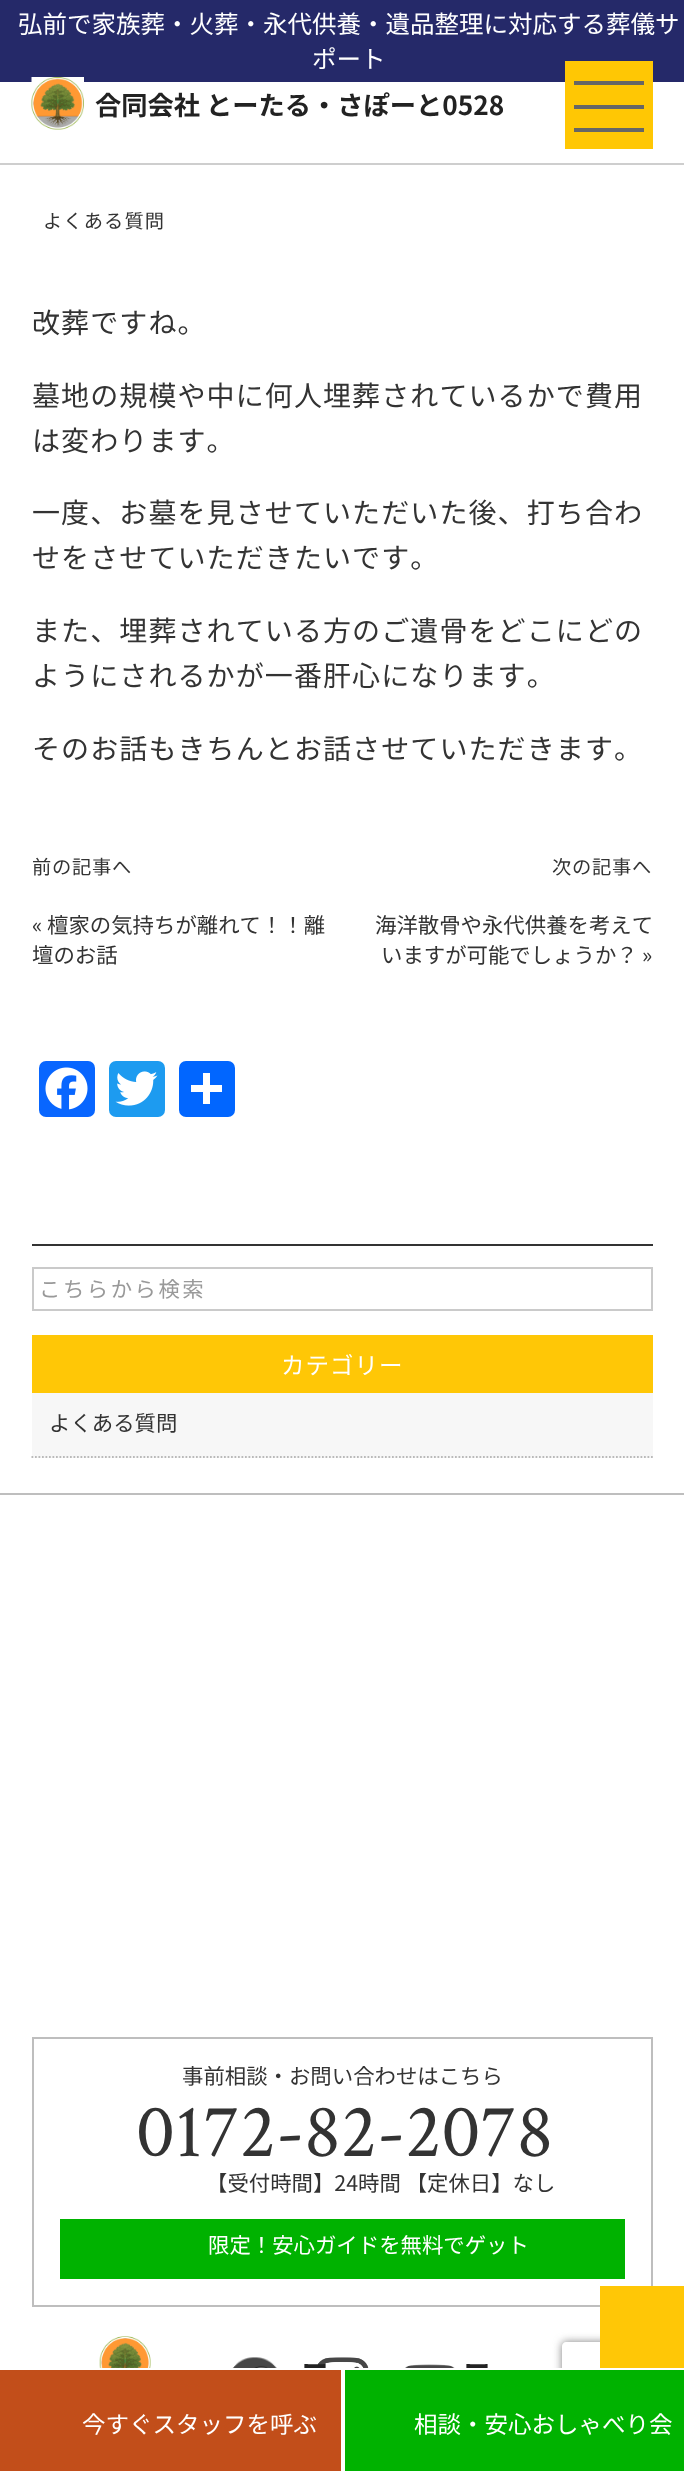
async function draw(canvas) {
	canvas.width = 684;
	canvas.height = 2471;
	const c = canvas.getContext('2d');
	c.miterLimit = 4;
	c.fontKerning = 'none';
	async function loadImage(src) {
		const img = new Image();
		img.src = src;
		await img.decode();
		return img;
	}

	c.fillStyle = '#fff';
	c.fillRect(0, 0, 684, 2471);
	c.fillStyle = '#cecece';
	c.fillRect(0, 163, 684, 2);
	c.fillStyle = '#252969';
	c.fillRect(0, 0, 684, 82);
	c.font = '24.5px Noto Sans JP';
	c.fillStyle = '#fff';
	c.fillText('弘前で家族葬・火葬・永代供養・遺品整理に対応する葬儀サ', 18, 33);
	c.fillText('ポート', 312, 68);
	c.drawImage(await loadImage('img1.png'), 31, 77, 53, 53);
	c.font = 'bold 26.25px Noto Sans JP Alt';
	c.fillStyle = '#222';
	c.fillText('合同会社 とーたる・さぽーと0528', 95, 115);
	for (const [x, y, w, h, color] of [
		[565, 61, 88, 88, '#ffc704'],
		[574, 81, 70, 4, '#666'],
		[574, 105, 70, 4, '#666'],
		[574, 128, 70, 4, '#666'],
	]) {
		c.fillStyle = color;
		c.fillRect(x, y, w, h);
	}
	c.letterSpacing = '1.1px';
	c.font = '19.25px Noto Sans JP';
	c.fillStyle = '#333';
	c.fillText('よくある質問', 43, 228);
	c.font = '28px Noto Sans JP';
	for (const [text, x, y] of [
		['改葬ですね。', 32, 333],
		['墓地の規模や中に何人埋葬されているかで費用', 32, 406],
		['は変わります。', 32, 451],
		['一度、お墓を見させていただいた後、打ち合わ', 32, 523],
		['せをさせていただきたいです。', 32, 568],
		['また、埋葬されている方のご遺骨をどこにどの', 32, 641],
		['ようにされるかが一番肝心になります。', 32, 686],
		['そのお話もきちんとお話させていただきます。', 32, 759],
	]) {
		c.fillText(text, x, y);
	}
	c.letterSpacing = '0.75px';
	c.font = '19.25px Noto Sans JP';
	c.fillText('前の記事へ', 32, 874);
	c.letterSpacing = '0px';
	c.font = '21.4px Noto Sans JP';
	c.fillText('« 檀家の気持ちが離れて！！離', 32, 933);
	c.fillText('壇のお話', 32, 963);
	c.letterSpacing = '0.75px';
	c.font = '19.25px Noto Sans JP';
	c.fillText('次の記事へ', 552, 874);
	c.letterSpacing = '0px';
	c.font = '21.4px Noto Sans JP';
	for (const [text, x, y] of [
		['海洋散骨や永代供養を考えて', 375, 933],
		['いますが可能でしょうか？', 381, 963],
		['»', 642, 963],
	]) {
		c.fillText(text, x, y);
	}
	c.fillStyle = '#0866ff';
	c.beginPath();
	c.roundRect(39, 1061, 56, 56, 7);
	c.fill();
	c.drawImage(await loadImage('img2.png'), 45, 1067, 43, 43);
	c.fillStyle = '#1d9bf0';
	c.beginPath();
	c.roundRect(109, 1061, 56, 56, 7);
	c.fill();
	c.drawImage(await loadImage('img3.png'), 115, 1071, 43, 35);
	c.fillStyle = '#0166ff';
	c.beginPath();
	c.roundRect(179, 1061, 56, 56, 7);
	c.fill();
	for (const [x, y, w, h, color] of [
		[203, 1073, 7, 31, '#fff'],
		[191, 1085, 31, 7, '#fff'],
		[32, 1244, 621, 2, '#333'],
	]) {
		c.fillStyle = color;
		c.fillRect(x, y, w, h);
	}
	c.strokeStyle = '#cacaca';
	c.lineWidth = 2;
	c.strokeRect(33, 1268, 619, 42);
	c.letterSpacing = '2.5px';
	c.fillStyle = '#999';
	c.fillText('こちらから検索', 39, 1297);
	c.fillStyle = '#f7f7f7';
	c.fillRect(32, 1393, 621, 65);
	c.fillStyle = '#ffc706';
	c.fillRect(32, 1335, 621, 58);
	c.letterSpacing = '1px';
	c.font = '23.5px Noto Sans JP';
	c.fillStyle = '#fff';
	c.fillText('カテゴリー', 281, 1374);
	c.beginPath();
	c.moveTo(31.5, 1457);
	c.lineTo(653, 1457);
	c.strokeStyle = '#bababa';
	c.lineWidth = 1.8;
	c.setLineDash([1.75, 1.75]);
	c.stroke();
	c.letterSpacing = '0px';
	c.font = '21.4px Noto Sans JP';
	c.fillStyle = '#333';
	c.fillText('よくある質問', 49, 1431);
	c.fillStyle = '#bebebe';
	c.fillRect(0, 1493, 684, 2);
	c.strokeStyle = '#bebebe';
	c.lineWidth = 2;
	c.setLineDash([]);
	c.strokeRect(33, 2038, 619, 268);
	c.fillStyle = '#333';
	c.fillText('事前相談・お問い合わせはこちら', 182, 2084);
	c.font = '77px Crimson Text';
	c.fillText('0172-82-2078', 136, 2156);
	c.font = '21.4px Noto Sans JP';
	c.fillText('【受付時間】24時間 【定休日】なし', 206, 2191);
	c.fillStyle = '#00b200';
	c.fillRect(60, 2219, 565, 60);
	c.fillStyle = '#fff';
	c.fillText('限定！安心ガイドを無料でゲット', 208, 2253);
	c.drawImage(await loadImage('img4.png'), 232, 2357, 45, 11);
	c.drawImage(await loadImage('img5.png'), 316, 2357, 53, 11);
	c.drawImage(await loadImage('img6.png'), 405, 2364, 50, 4);
	c.drawImage(await loadImage('img7.png'), 99, 2336, 52, 32);
	c.letterSpacing = '1px';
	c.font = 'bold 26px Noto Sans JP';
	c.fillStyle = '#222';
	c.fillText('ー', 302, 2376);
	c.fillText('ー', 464, 2376);
	c.save();
	c.beginPath();
	c.moveTo(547, 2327);
	c.lineTo(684, 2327);
	c.lineTo(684, 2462);
	c.lineTo(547, 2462);
	c.closePath();
	c.moveTo(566, 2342);
	c.lineTo(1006, 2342);
	c.bezierCurveTo(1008, 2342, 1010, 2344, 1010, 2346);
	c.lineTo(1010, 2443);
	c.bezierCurveTo(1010, 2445, 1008, 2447, 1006, 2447);
	c.lineTo(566, 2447);
	c.bezierCurveTo(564, 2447, 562, 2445, 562, 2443);
	c.lineTo(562, 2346);
	c.bezierCurveTo(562, 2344, 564, 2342, 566, 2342);
	c.closePath();
	c.clip('evenodd');
	c.fillStyle = '#808080';
	c.filter = 'blur(4.5px)';
	c.beginPath();
	c.roundRect(562, 2342, 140, 105, 4);
	c.fill();
	c.filter = 'none';
	c.restore();
	for (const [x, y, w, h, color] of [
		[600, 2286, 84, 82, '#ffc706'],
		[0, 2370, 341, 101, '#c24e1a'],
		[304, 2368, 22, 1, '#fff'],
	]) {
		c.fillStyle = color;
		c.fillRect(x, y, w, h);
	}
	c.letterSpacing = '0px';
	c.font = '23.5px Noto Sans JP';
	c.fillText('今すぐスタッフを呼ぶ', 82, 2433);
	c.fillStyle = '#00b200';
	c.fillRect(345, 2370, 339, 101);
	c.fillStyle = '#fff';
	c.fillRect(466, 2368, 96, 2);
	c.fillText('相談・安心おしゃべり会', 414, 2433);
}

draw(document.querySelector('canvas'));
